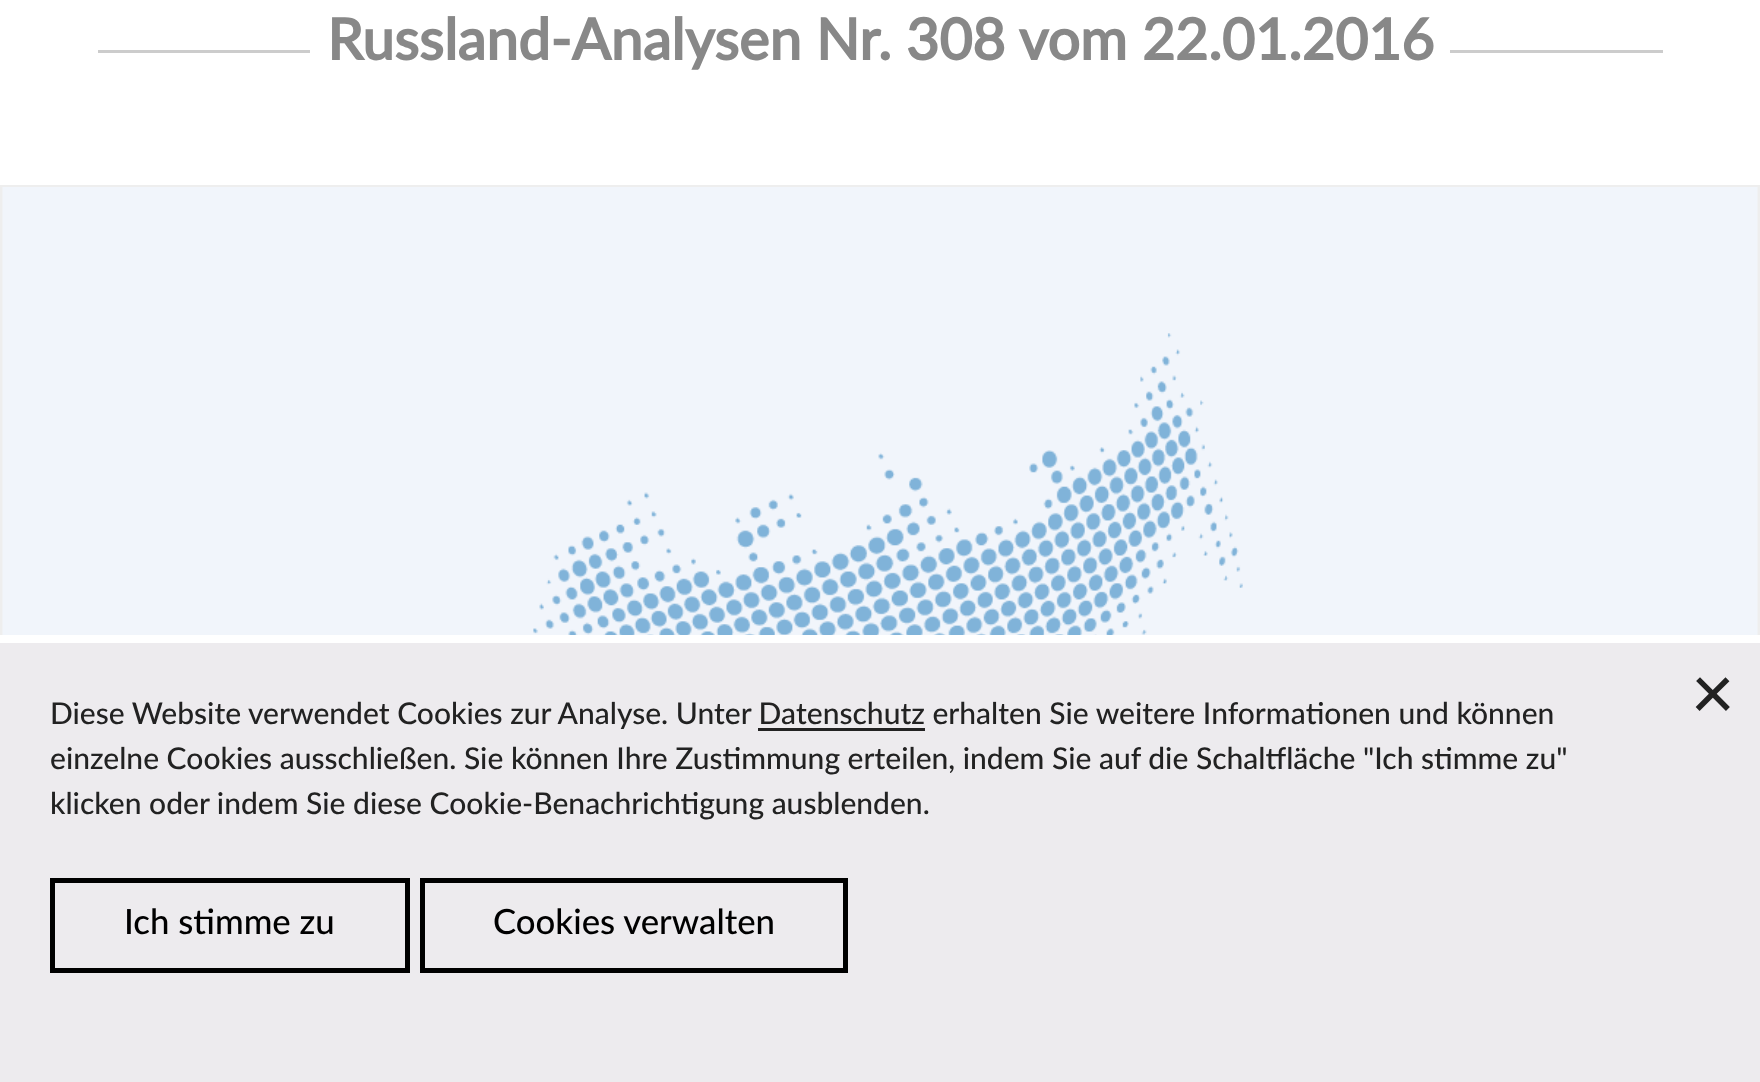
async function draw(canvas) {
	canvas.width = 1760;
	canvas.height = 1082;
	const c = canvas.getContext('2d');
	c.miterLimit = 4;
	c.fontKerning = 'normal';
	async function loadImage(src) {
		const img = new Image();
		img.src = src;
		await img.decode();
		return img;
	}

	c.fillStyle = '#fff';
	c.fillRect(0, 0, 1760, 1082);
	c.fillStyle = '#ccc';
	c.fillRect(98, 50, 1565, 3);
	c.fillStyle = '#fff';
	c.fillRect(310, 50, 1140, 3);
	c.font = 'bold 57.25px Lato';
	c.fillStyle = '#888';
	c.fillText('Russland-Analysen Nr. 308 vom 22.01.2016', 327, 60);
	c.strokeStyle = '#eee';
	c.lineWidth = 3;
	c.strokeRect(1.5, 186.5, 1757, 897);
	c.drawImage(await loadImage('img1.png'), 2, 187, 1756, 448);
	c.fillStyle = '#edebee';
	c.fillRect(0, 643, 1760, 439);
	c.fillStyle = '#fff';
	c.fillRect(0, 635, 1760, 8);
	c.font = '500 75px Lato';
	c.fillStyle = '#222';
	c.fillText('×', 1691, 719);
	c.font = '500 30px Lato';
	c.fillText('Diese Website verwendet Cookies zur Analyse. Unter Datenschutz erhalten Sie weitere Informationen und können', 50, 724);
	c.fillRect(758, 728, 167, 3);
	c.fillText('einzelne Cookies ausschließen. Sie können Ihre Zustimmung erteilen, indem Sie auf die Schaltfläche "Ich stimme zu"', 50, 769);
	c.fillText('klicken oder indem Sie diese Cookie-Benachrichtigung ausblenden.', 50, 814);
	c.strokeStyle = '#000';
	c.lineWidth = 5;
	c.strokeRect(52.5, 880.5, 355, 90);
	c.font = '500 34.75px Lato';
	c.fillStyle = '#000';
	c.fillText('Ich stimme zu', 124, 934);
	c.strokeRect(422.5, 880.5, 423, 90);
	c.fillText('Cookies verwalten', 493, 934);
}

draw(document.querySelector('canvas'));
